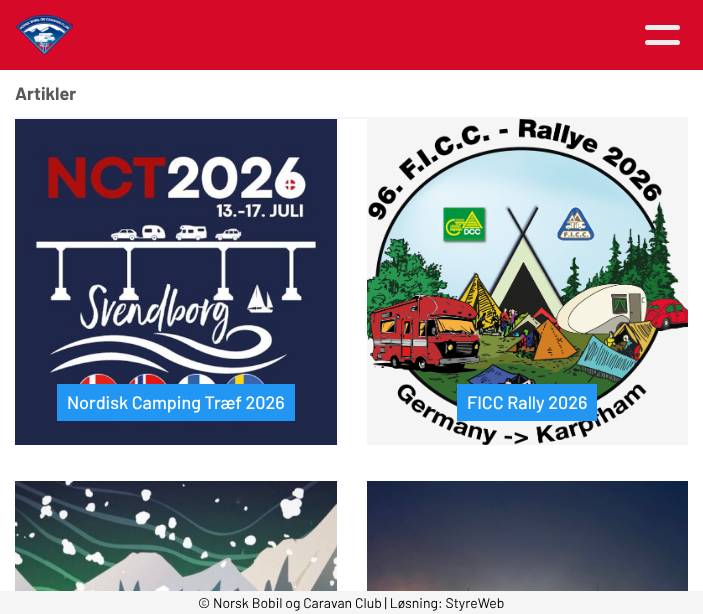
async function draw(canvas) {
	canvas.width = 703;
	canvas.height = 614;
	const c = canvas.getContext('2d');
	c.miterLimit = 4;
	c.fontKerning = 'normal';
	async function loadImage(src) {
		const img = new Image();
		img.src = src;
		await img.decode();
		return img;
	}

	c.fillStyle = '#fff';
	c.fillRect(0, 0, 703, 614);
	c.fillStyle = '#d70929';
	c.fillRect(0, 0, 703, 70);
	c.drawImage(await loadImage('img1.png'), 16, 15, 57, 40);
	c.fillStyle = '#ececec';
	c.beginPath();
	c.roundRect(645, 25, 35, 5, 2.5);
	c.fill();
	c.beginPath();
	c.roundRect(645, 40, 35, 5, 2.5);
	c.fill();
	c.fillStyle = '#f5f5f5';
	c.fillRect(15, 117, 673, 2);
	c.font = 'bold 18px Barlow';
	c.fillStyle = '#585858';
	c.fillText('Artikler', 15, 100);
	c.drawImage(await loadImage('img2.png'), 15, 119, 322, 326);
	c.fillStyle = '#2196f3';
	c.fillRect(57, 384, 238, 37);
	c.font = '500 18px Barlow';
	c.fillStyle = '#fff';
	c.fillText('Nordisk Camping Træf 2026', 67, 409);
	c.fillStyle = '#f5f5f5';
	c.fillRect(367, 119, 321, 326);
	c.drawImage(await loadImage('img3.png'), 367, 119, 321, 326);
	c.fillStyle = '#2196f3';
	c.fillRect(457, 384, 140, 37);
	c.fillStyle = '#fff';
	c.fillText('FICC Rally 2026', 467, 409);
	c.drawImage(await loadImage('img4.png'), 15, 481, 322, 110);
	c.drawImage(await loadImage('img5.png'), 367, 481, 321, 110);
	c.fillStyle = '#f5f5f5';
	c.fillRect(0, 591, 703, 23);
	c.font = '14px Barlow';
	c.fillStyle = '#000';
	c.fillText('© Norsk Bobil og Caravan Club | Løsning: StyreWeb', 198, 608);
}

draw(document.querySelector('canvas'));
